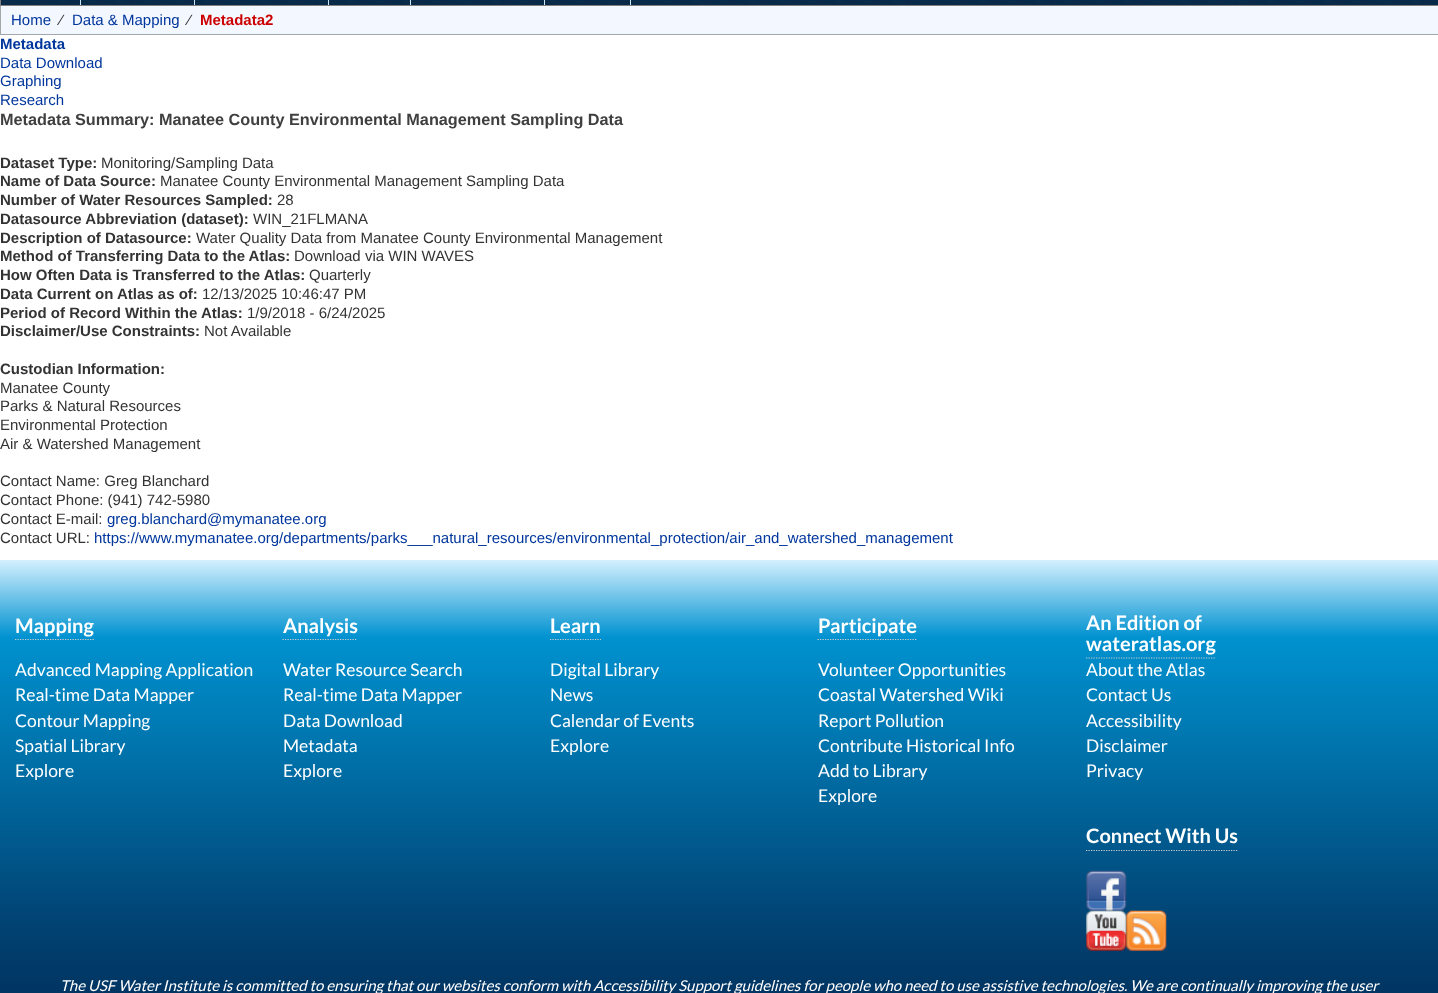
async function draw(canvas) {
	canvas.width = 1438;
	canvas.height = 993;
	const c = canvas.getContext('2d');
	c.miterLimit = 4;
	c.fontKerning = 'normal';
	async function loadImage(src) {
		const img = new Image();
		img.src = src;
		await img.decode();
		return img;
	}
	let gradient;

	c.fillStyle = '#fff';
	c.fillRect(0, 0, 1438, 993);
	c.drawImage(await loadImage('img1.png'), 1, 0, 1437, 5);
	c.strokeStyle = '#808080';
	c.strokeRect(0.5, -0.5, 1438, 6);
	for (const [x, y, w, h, color] of [
		[80, 0, 1, 5, '#cce6fe'],
		[194, 0, 1, 5, '#cce6fe'],
		[328, 0, 1, 5, '#cce6fe'],
		[410, 0, 1, 5, '#cce6fe'],
		[544, 0, 1, 5, '#cce6fe'],
		[630, 0, 1, 5, '#cce6fe'],
		[1, 6, 1437, 28, '#f3f7ff'],
		[0, 34, 1438, 1, '#a3a7aa'],
		[0, 6, 1, 29, '#a3a7aa'],
	]) {
		c.fillStyle = color;
		c.fillRect(x, y, w, h);
	}
	c.font = '15px Liberation Sans';
	c.fillStyle = '#01369c';
	c.fillText('Home', 11, 25);
	c.fillStyle = '#333';
	c.fillText('⁄', 60, 25);
	c.fillStyle = '#01369c';
	c.fillText('Data & Mapping', 72, 25);
	c.fillStyle = '#333';
	c.fillText('⁄', 188, 25);
	c.font = 'bold 15px Liberation Sans';
	c.fillStyle = '#c00';
	c.fillText('Metadata2', 200, 25);
	c.fillStyle = '#01369c';
	c.fillText('Metadata', 0, 49);
	c.font = '15px Liberation Sans';
	for (const [text, x, y] of [
		['Data Download', 0, 68],
		['Graphing', 0, 86],
		['Research', 0, 105],
	]) {
		c.fillText(text, x, y);
	}
	c.font = 'bold 16.25px Liberation Sans';
	c.fillStyle = '#3f3f3f';
	c.fillText('Metadata Summary: Manatee County Environmental Management Sampling Data', 0, 125);
	c.font = 'bold 15px Liberation Sans';
	c.fillStyle = '#333';
	c.fillText('Dataset Type:', 0, 168);
	c.font = '15px Liberation Sans';
	c.fillText('Monitoring/Sampling Data', 101, 168);
	c.font = 'bold 15px Liberation Sans';
	c.fillText('Name of Data Source:', 0, 186);
	c.font = '15px Liberation Sans';
	c.fillText('Manatee County Environmental Management Sampling Data', 160, 186);
	c.font = 'bold 15px Liberation Sans';
	c.fillText('Number of Water Resources Sampled:', 0, 205);
	c.font = '15px Liberation Sans';
	c.fillText('28', 277, 205);
	c.font = 'bold 15px Liberation Sans';
	c.fillText('Datasource Abbreviation (dataset):', 0, 224);
	c.font = '15px Liberation Sans';
	c.fillText('WIN_21FLMANA', 253, 224);
	c.font = 'bold 15px Liberation Sans';
	c.fillText('Description of Datasource:', 0, 243);
	c.font = '15px Liberation Sans';
	c.fillText('Water Quality Data from Manatee County Environmental Management', 196, 243);
	c.font = 'bold 15px Liberation Sans';
	c.fillText('Method of Transferring Data to the Atlas:', 0, 261);
	c.font = '15px Liberation Sans';
	c.fillText('Download via WIN WAVES', 294, 261);
	c.font = 'bold 15px Liberation Sans';
	c.fillText('How Often Data is Transferred to the Atlas:', 0, 280);
	c.font = '15px Liberation Sans';
	c.fillText('Quarterly', 309, 280);
	c.font = 'bold 15px Liberation Sans';
	c.fillText('Data Current on Atlas as of:', 0, 299);
	c.font = '15px Liberation Sans';
	c.fillText('12/13/2025 10:46:47 PM', 202, 299);
	c.font = 'bold 15px Liberation Sans';
	c.fillText('Period of Record Within the Atlas:', 0, 318);
	c.font = '15px Liberation Sans';
	c.fillText('1/9/2018 - 6/24/2025', 247, 318);
	c.font = 'bold 15px Liberation Sans';
	c.fillText('Disclaimer/Use Constraints:', 0, 336);
	c.font = '15px Liberation Sans';
	c.fillText('Not Available', 204, 336);
	c.font = 'bold 15px Liberation Sans';
	c.fillText('Custodian Information:', 0, 374);
	c.font = '15px Liberation Sans';
	for (const [text, x, y] of [
		['Manatee County', 0, 393],
		['Parks & Natural Resources', 0, 411],
		['Environmental Protection', 0, 430],
		['Air & Watershed Management', 0, 449],
		['Contact Name: Greg Blanchard', 0, 486],
		['Contact Phone: (941) 742-5980', 0, 505],
		['Contact E-mail:', 0, 524],
	]) {
		c.fillText(text, x, y);
	}
	c.fillStyle = '#01369c';
	c.fillText('greg.blanchard@mymanatee.org', 107, 524);
	c.fillStyle = '#333';
	c.fillText('Contact URL:', 0, 543);
	c.fillStyle = '#01369c';
	c.fillText('https://www.mymanatee.org/departments/parks___natural_resources/environmental_protection/air_and_watershed_management', 94, 543);
	gradient = c.createLinearGradient(719, 560, 719, 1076);
	gradient.addColorStop(0, '#d4f0ff');
	gradient.addColorStop(0.15, '#0092d0');
	gradient.addColorStop(0.27, '#0081bc');
	gradient.addColorStop(0.71, '#014272');
	gradient.addColorStop(0.92, '#012d59');
	gradient.addColorStop(0.99, '#012854');
	gradient.addColorStop(1, '#052c56');
	gradient.addColorStop(1, '#a5bbc7');
	c.fillStyle = gradient;
	c.fillRect(0, 560, 1438, 433);
	c.font = 'bold 20px Lato';
	c.fillStyle = '#fff';
	c.fillText('Mapping', 15, 633);
	c.beginPath();
	c.moveTo(15, 639.5);
	c.lineTo(94, 639.5);
	c.strokeStyle = '#ccc';
	c.lineWidth = 1.2;
	c.setLineDash([1.25, 1.25]);
	c.stroke();
	c.font = '17.5px Lato';
	for (const [text, x, y] of [
		['Advanced Mapping Application', 15, 676],
		['Real-time Data Mapper', 15, 701],
		['Contour Mapping', 15, 727],
		['Spatial Library', 15, 752],
		['Explore', 15, 777],
	]) {
		c.fillText(text, x, y);
	}
	c.font = 'bold 20px Lato';
	c.fillText('Analysis', 283, 633);
	c.beginPath();
	c.moveTo(282.5, 639.5);
	c.lineTo(357.5, 639.5);
	c.stroke();
	c.font = '17.5px Lato';
	for (const [text, x, y] of [
		['Water Resource Search', 283, 676],
		['Real-time Data Mapper', 283, 701],
		['Data Download', 283, 727],
		['Metadata', 283, 752],
		['Explore', 283, 777],
	]) {
		c.fillText(text, x, y);
	}
	c.font = 'bold 20px Lato';
	c.fillText('Learn', 550, 633);
	c.beginPath();
	c.moveTo(550, 639.5);
	c.lineTo(601, 639.5);
	c.stroke();
	c.font = '17.5px Lato';
	for (const [text, x, y] of [
		['Digital Library', 550, 676],
		['News', 550, 701],
		['Calendar of Events', 550, 727],
		['Explore', 550, 752],
	]) {
		c.fillText(text, x, y);
	}
	c.font = 'bold 20px Lato';
	c.fillText('Participate', 818, 633);
	c.beginPath();
	c.moveTo(817.5, 639.5);
	c.lineTo(917.5, 639.5);
	c.stroke();
	c.font = '17.5px Lato';
	for (const [text, x, y] of [
		['Volunteer Opportunities', 818, 676],
		['Coastal Watershed Wiki', 818, 701],
		['Report Pollution', 818, 727],
		['Contribute Historical Info', 818, 752],
		['Add to Library', 818, 777],
		['Explore', 818, 802],
	]) {
		c.fillText(text, x, y);
	}
	c.font = 'bold 20px Lato';
	c.fillText('An Edition of', 1086, 630);
	c.fillText('wateratlas.org', 1086, 651);
	c.beginPath();
	c.moveTo(1086, 658);
	c.lineTo(1215, 658);
	c.stroke();
	c.font = '17.5px Lato';
	for (const [text, x, y] of [
		['About the Atlas', 1086, 676],
		['Contact Us', 1086, 701],
		['Accessibility', 1086, 727],
		['Disclaimer', 1086, 752],
		['Privacy', 1086, 777],
	]) {
		c.fillText(text, x, y);
	}
	c.font = 'bold 20px Lato';
	c.fillText('Connect With Us', 1086, 843);
	c.beginPath();
	c.moveTo(1086, 850.5);
	c.lineTo(1237.5, 850.5);
	c.stroke();
	c.drawImage(await loadImage('img2.png'), 1086, 870, 41, 41);
	c.drawImage(await loadImage('img3.png'), 1086, 910, 41, 41);
	c.drawImage(await loadImage('img4.png'), 1126, 910, 41, 41);
	c.font = 'italic 15px Lato';
	c.fillText('The USF Water Institute is committed to ensuring that our websites conform with Accessibility Support guidelines for people who need to use assistive technologies. We are continually improving the user', 60, 991);
}

draw(document.querySelector('canvas'));
